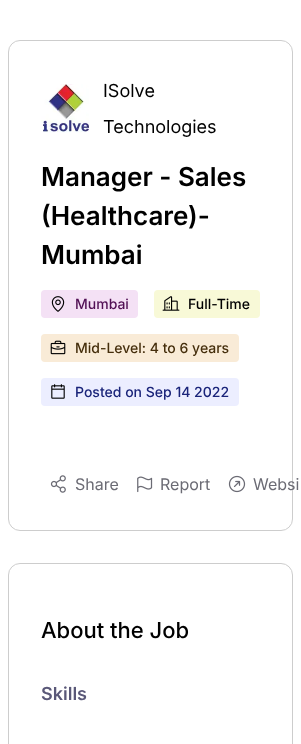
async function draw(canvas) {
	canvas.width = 301;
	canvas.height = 744;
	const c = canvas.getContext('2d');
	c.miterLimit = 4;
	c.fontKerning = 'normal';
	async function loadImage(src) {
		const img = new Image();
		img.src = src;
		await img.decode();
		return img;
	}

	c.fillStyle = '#fff';
	c.fillRect(0, 0, 301, 744);
	c.beginPath();
	c.roundRect(8.5, 40.5, 284, 490, 11.5);
	c.strokeStyle = '#cdcdcd';
	c.stroke();
	c.drawImage(await loadImage('img1.png'), 41, 84, 48, 49);
	c.font = '18px Inter';
	c.fillStyle = '#000';
	c.fillText('ISolve', 103, 97);
	c.fillText('Technologies', 103, 133);
	c.font = '600 26px Inter';
	for (const [text, x, y] of [
		['Manager - Sales', 41, 186],
		['(Healthcare)-', 41, 225],
		['Mumbai', 41, 264],
	]) {
		c.fillText(text, x, y);
	}
	c.fillStyle = '#f4e1f5';
	c.beginPath();
	c.roundRect(41, 290, 97, 28, 4);
	c.fill();
	c.drawImage(await loadImage('img2.png'), 51, 296, 14, 16);
	c.font = '500 14px Inter';
	c.fillStyle = '#521155';
	c.fillText('Mumbai', 75, 309);
	c.fillStyle = '#f8f9d7';
	c.beginPath();
	c.roundRect(154, 290, 106, 28, 4);
	c.fill();
	c.drawImage(await loadImage('img3.png'), 162, 296, 18, 15);
	c.fillStyle = '#000';
	c.fillText('Full-Time', 188, 309);
	c.fillStyle = '#f9ebd7';
	c.beginPath();
	c.roundRect(41, 334, 198, 28, 4);
	c.fill();
	c.drawImage(await loadImage('img4.png'), 50, 340, 16, 15);
	c.fillStyle = '#452e0c';
	c.fillText('Mid-Level: 4 to 6 years', 75, 353);
	c.fillStyle = '#eceeff';
	c.beginPath();
	c.roundRect(41, 378, 198, 28, 4);
	c.fill();
	c.drawImage(await loadImage('img5.png'), 51, 384, 14, 15);
	c.fillStyle = '#1a247a';
	c.fillText('Posted on Sep 14 2022', 75, 397);
	c.drawImage(await loadImage('img6.png'), 50, 475, 16, 18);
	c.font = '16px Inter';
	c.fillStyle = '#6b6b74';
	c.fillText('Share', 75, 490);
	c.drawImage(await loadImage('img7.png'), 137, 476, 16, 17);
	c.fillText('Report', 160, 490);
	c.drawImage(await loadImage('img8.png'), 228, 475, 18, 18);
	c.fillText('Websi', 253, 490);
	c.beginPath();
	c.roundRect(8.5, 563.5, 284, 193, 11.5);
	c.stroke();
	c.font = '500 22px Inter';
	c.fillStyle = '#000';
	c.fillText('About the Job', 41, 638);
	c.font = '600 18px Inter';
	c.fillStyle = '#5a5878';
	c.fillText('Skills', 41, 700);
}

draw(document.querySelector('canvas'));
